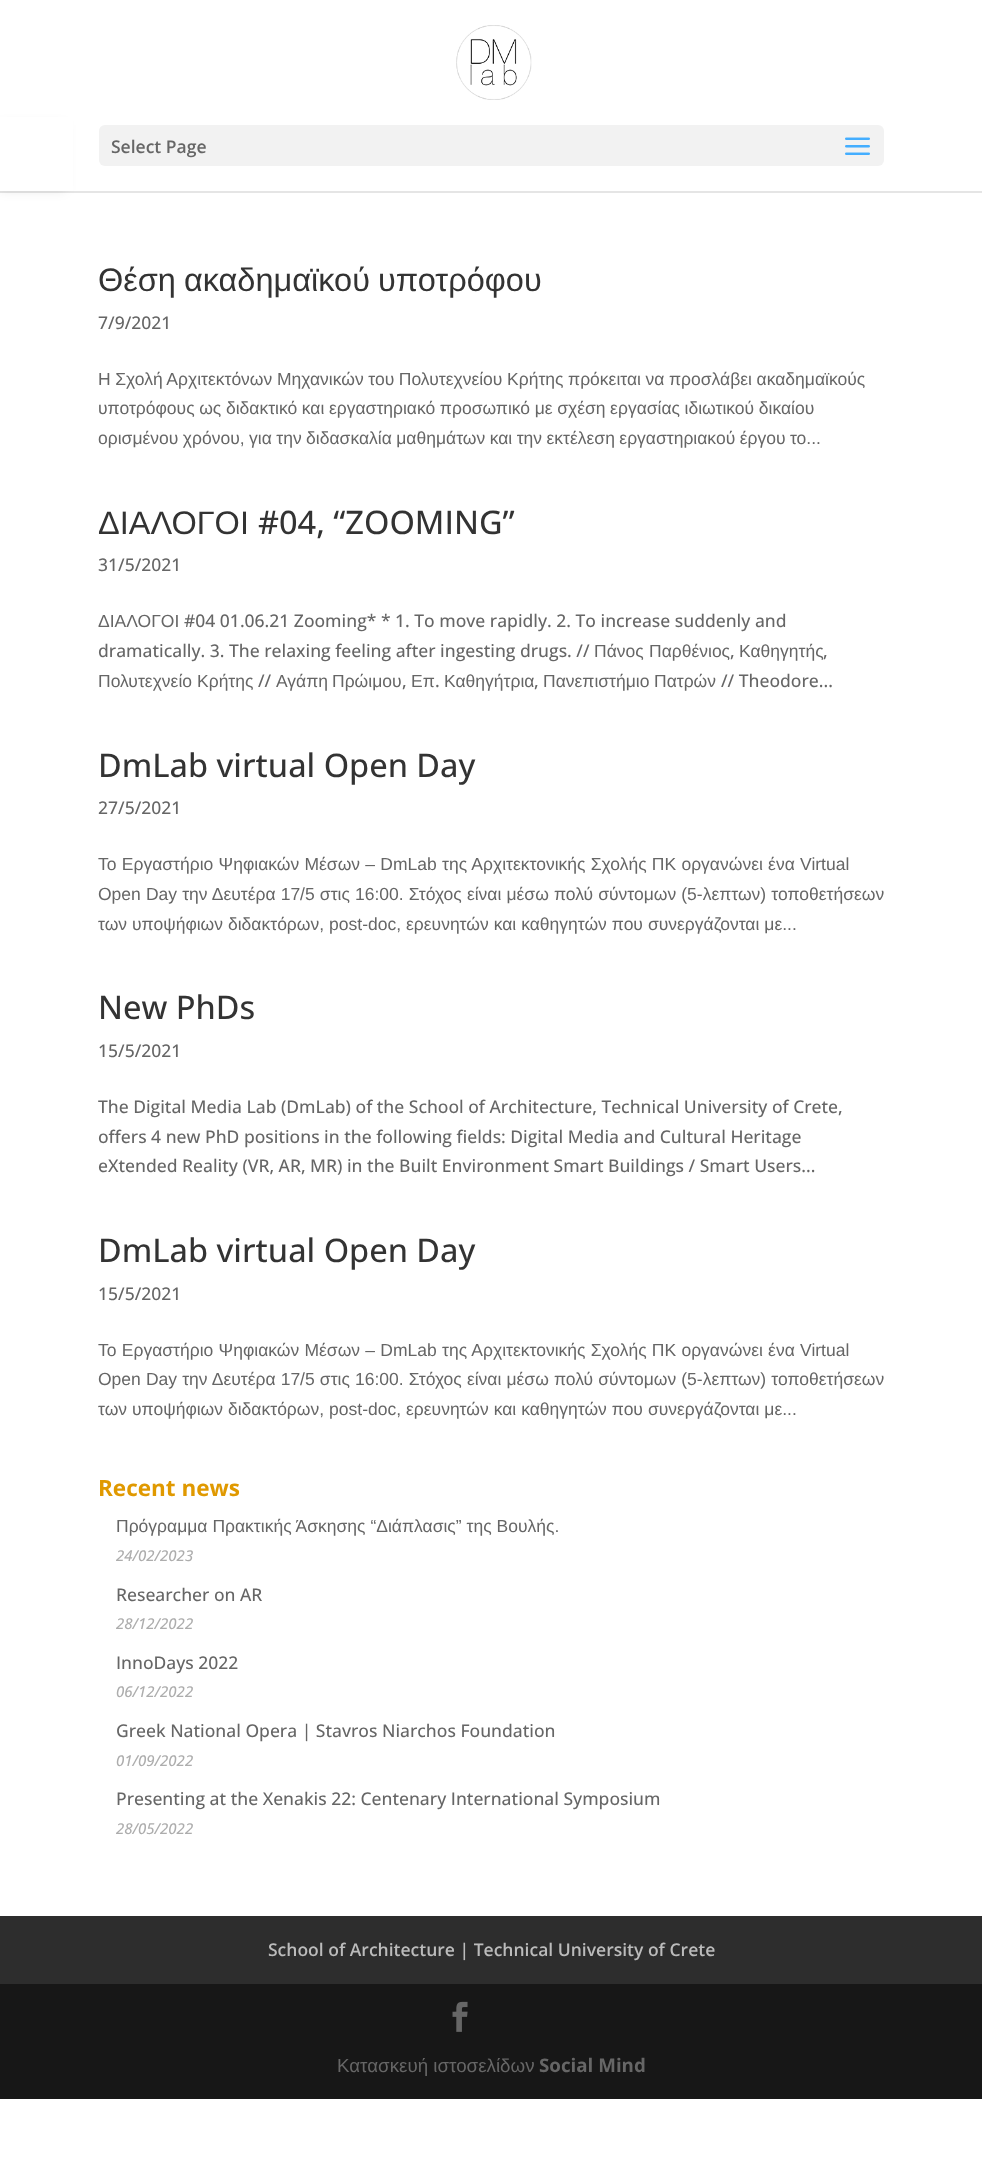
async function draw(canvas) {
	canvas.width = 982;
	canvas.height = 2183;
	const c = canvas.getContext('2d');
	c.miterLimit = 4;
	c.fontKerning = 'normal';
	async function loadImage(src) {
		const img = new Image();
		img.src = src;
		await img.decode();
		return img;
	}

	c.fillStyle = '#fff';
	c.fillRect(0, 0, 982, 2183);
	c.fillStyle = '#0000001a';
	c.filter = 'blur(6px)';
	c.beginPath();
	c.rect(0, 125, 65, 65);
	c.fill();
	c.filter = 'none';
	c.beginPath();
	c.moveTo(0, 191);
	c.lineTo(0, 193);
	c.lineTo(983, 193);
	c.lineTo(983, 1);
	c.lineTo(982, 1);
	c.lineTo(982, 191);
	c.closePath();
	c.fill();
	c.fillStyle = '#fff';
	c.fillRect(0, 117, 73, 74);
	c.drawImage(await loadImage('img1.png'), 456, 25, 76, 75);
	c.fillStyle = '#f2f2f2';
	c.beginPath();
	c.roundRect(99, 125, 785, 41, 6);
	c.fill();
	c.font = '600 17.5px Open Sans';
	c.fillStyle = '#666';
	c.fillText('Select Page', 111, 153);
	c.drawImage(await loadImage('img2.png'), 845, 137, 25, 18);
	c.wordSpacing = '-1px';
	c.font = '32.5px Liberation Sans';
	c.fillStyle = '#333';
	c.fillText('Θέση ακαδημαϊκού υποτρόφου', 98, 291);
	c.wordSpacing = '0px';
	c.font = '500 17.5px Open Sans';
	c.fillStyle = '#666';
	c.fillText('7/9/2021', 98, 329);
	c.wordSpacing = '-0.25px';
	c.font = '17.5px Liberation Sans';
	c.fillText('Η Σχολή Αρχιτεκτόνων Μηχανικών του Πολυτεχνείου Κρήτης πρόκειται να προσλάβει ακαδημαϊκούς', 98, 385);
	c.fillText('υποτρόφους ως διδακτικό και εργαστηριακό προσωπικό με σχέση εργασίας ιδιωτικού δικαίου', 98, 414);
	c.wordSpacing = '-0.4px';
	c.fillText('ορισμένου χρόνου, για την διδασκαλία μαθημάτων και την εκτέλεση εργαστηριακού έργου το...', 98, 444);
	c.wordSpacing = '0px';
	c.font = '32.5px Liberation Sans';
	c.fillStyle = '#333';
	c.fillText('ΔΙΑΛΟΓΟΙ', 98, 534);
	c.font = '500 32.5px Open Sans';
	c.fillText('#04, “ZOOMING”', 258, 534);
	c.font = '500 17.5px Open Sans';
	c.fillStyle = '#666';
	c.fillText('31/5/2021', 98, 571);
	c.font = '17.5px Liberation Sans';
	c.fillText('ΔΙΑΛΟΓΟΙ', 98, 627);
	c.font = '500 17.5px Open Sans';
	c.fillText('#04 01.06.21 Zooming* * 1. To move rapidly. 2. To increase suddenly and', 184, 627);
	c.fillText('dramatically. 3. The relaxing feeling after ingesting drugs. //', 98, 657);
	c.font = '17.5px Liberation Sans';
	c.fillText('Πάνος', 594, 657);
	c.fillText('Παρθένιος', 649, 657);
	c.font = '500 17.5px Open Sans';
	c.fillText(',', 730, 657);
	c.font = '17.5px Liberation Sans';
	c.fillText('Καθηγητής', 739, 657);
	c.font = '500 17.5px Open Sans';
	c.fillText(',', 823, 657);
	c.font = '17.5px Liberation Sans';
	c.fillText('Πολυτεχνείο', 98, 687);
	c.fillText('Κρήτης', 197, 687);
	c.font = '500 17.5px Open Sans';
	c.fillText('//', 258, 687);
	c.font = '17.5px Liberation Sans';
	c.fillText('Αγάπη', 276, 687);
	c.fillText('Πρώιμου', 332, 687);
	c.font = '500 17.5px Open Sans';
	c.fillText(',', 402, 687);
	c.font = '17.5px Liberation Sans';
	c.fillText('Επ', 411, 687);
	c.font = '500 17.5px Open Sans';
	c.fillText('.', 435, 687);
	c.font = '17.5px Liberation Sans';
	c.fillText('Καθηγήτρια', 444, 687);
	c.font = '500 17.5px Open Sans';
	c.fillText(',', 534, 687);
	c.font = '17.5px Liberation Sans';
	c.fillText('Πανεπιστήμιο', 543, 687);
	c.fillText('Πατρών', 654, 687);
	c.font = '500 17.5px Open Sans';
	c.fillText('// Theodore...', 721, 687);
	c.font = '500 32.5px Open Sans';
	c.fillStyle = '#333';
	c.fillText('DmLab virtual Open Day', 98, 777);
	c.font = '500 17.5px Open Sans';
	c.fillStyle = '#666';
	c.fillText('27/5/2021', 98, 814);
	c.wordSpacing = '0.4px';
	c.font = '17.5px Liberation Sans';
	c.fillText('Το Εργαστήριο Ψηφιακών Μέσων – DmLab της Αρχιτεκτονικής Σχολής ΠΚ οργανώνει ένα Virtual', 98, 870);
	c.wordSpacing = '0.25px';
	c.fillText('Open Day την Δευτέρα 17/5 στις 16:00. Στόχος είναι μέσω πολύ σύντομων (5-λεπτων) τοποθετήσεων', 98, 900);
	c.wordSpacing = '0.1px';
	c.fillText('των υποψήφιων διδακτόρων, post-doc, ερευνητών και καθηγητών που συνεργάζονται με...', 98, 930);
	c.wordSpacing = '0px';
	c.font = '500 32.5px Open Sans';
	c.fillStyle = '#333';
	c.fillText('New PhDs', 98, 1019);
	c.font = '500 17.5px Open Sans';
	c.fillStyle = '#666';
	for (const [text, x, y] of [
		['15/5/2021', 98, 1057],
		['The Digital Media Lab (DmLab) of the School of Architecture, Technical University of Crete,', 98, 1113],
		['offers 4 new PhD positions in the following fields: Digital Media and Cultural Heritage', 98, 1143],
		['eXtended Reality (VR, AR, MR) in the Built Environment Smart Buildings / Smart Users...', 98, 1172],
	]) {
		c.fillText(text, x, y);
	}
	c.font = '500 32.5px Open Sans';
	c.fillStyle = '#333';
	c.fillText('DmLab virtual Open Day', 98, 1262);
	c.font = '500 17.5px Open Sans';
	c.fillStyle = '#666';
	c.fillText('15/5/2021', 98, 1300);
	c.wordSpacing = '0.4px';
	c.font = '17.5px Liberation Sans';
	c.fillText('Το Εργαστήριο Ψηφιακών Μέσων – DmLab της Αρχιτεκτονικής Σχολής ΠΚ οργανώνει ένα Virtual', 98, 1356);
	c.wordSpacing = '0.25px';
	c.fillText('Open Day την Δευτέρα 17/5 στις 16:00. Στόχος είναι μέσω πολύ σύντομων (5-λεπτων) τοποθετήσεων', 98, 1385);
	c.wordSpacing = '0.1px';
	c.fillText('των υποψήφιων διδακτόρων, post-doc, ερευνητών και καθηγητών που συνεργάζονται με...', 98, 1415);
	c.wordSpacing = '0px';
	c.font = 'bold 22.5px Open Sans';
	c.fillStyle = '#e09900';
	c.fillText('Recent news', 98, 1496);
	c.wordSpacing = '0.1px';
	c.font = '17.5px Liberation Sans';
	c.fillStyle = '#666';
	c.fillText('Πρόγραμμα Πρακτικής Άσκησης “Διάπλασις” της Βουλής.', 116, 1532);
	c.wordSpacing = '0px';
	c.font = 'italic 500 15px Open Sans';
	c.fillStyle = '#adadad';
	c.fillText('24/02/2023', 116, 1561);
	c.font = '500 17.5px Open Sans';
	c.fillStyle = '#666';
	c.fillText('Researcher on AR', 116, 1601);
	c.font = 'italic 500 15px Open Sans';
	c.fillStyle = '#adadad';
	c.fillText('28/12/2022', 116, 1629);
	c.font = '500 17.5px Open Sans';
	c.fillStyle = '#666';
	c.fillText('InnoDays 2022', 116, 1669);
	c.font = 'italic 500 15px Open Sans';
	c.fillStyle = '#adadad';
	c.fillText('06/12/2022', 116, 1697);
	c.font = '500 17.5px Open Sans';
	c.fillStyle = '#666';
	c.fillText('Greek National Opera | Stavros Niarchos Foundation', 116, 1737);
	c.font = 'italic 500 15px Open Sans';
	c.fillStyle = '#adadad';
	c.fillText('01/09/2022', 116, 1766);
	c.font = '500 17.5px Open Sans';
	c.fillStyle = '#666';
	c.fillText('Presenting at the Xenakis 22: Centenary International Symposium', 116, 1805);
	c.font = 'italic 500 15px Open Sans';
	c.fillStyle = '#adadad';
	c.fillText('28/05/2022', 116, 1834);
	c.fillStyle = '#2d2d2d';
	c.fillRect(0, 1916, 982, 68);
	c.font = '600 17.5px Open Sans';
	c.fillStyle = '#bbb';
	c.fillText('School of Architecture | Technical University of Crete', 268, 1956);
	c.fillStyle = '#171717';
	c.fillRect(0, 1984, 982, 115);
	c.drawImage(await loadImage('img3.png'), 452, 2001, 16, 31);
	c.font = '18.75px Liberation Sans';
	c.fillStyle = '#666';
	c.fillText('Κατασκευή ιστοσελίδων', 337, 2072);
	c.font = 'bold 18.75px Open Sans';
	c.fillText('Social Mind', 539, 2072);
}

draw(document.querySelector('canvas'));
